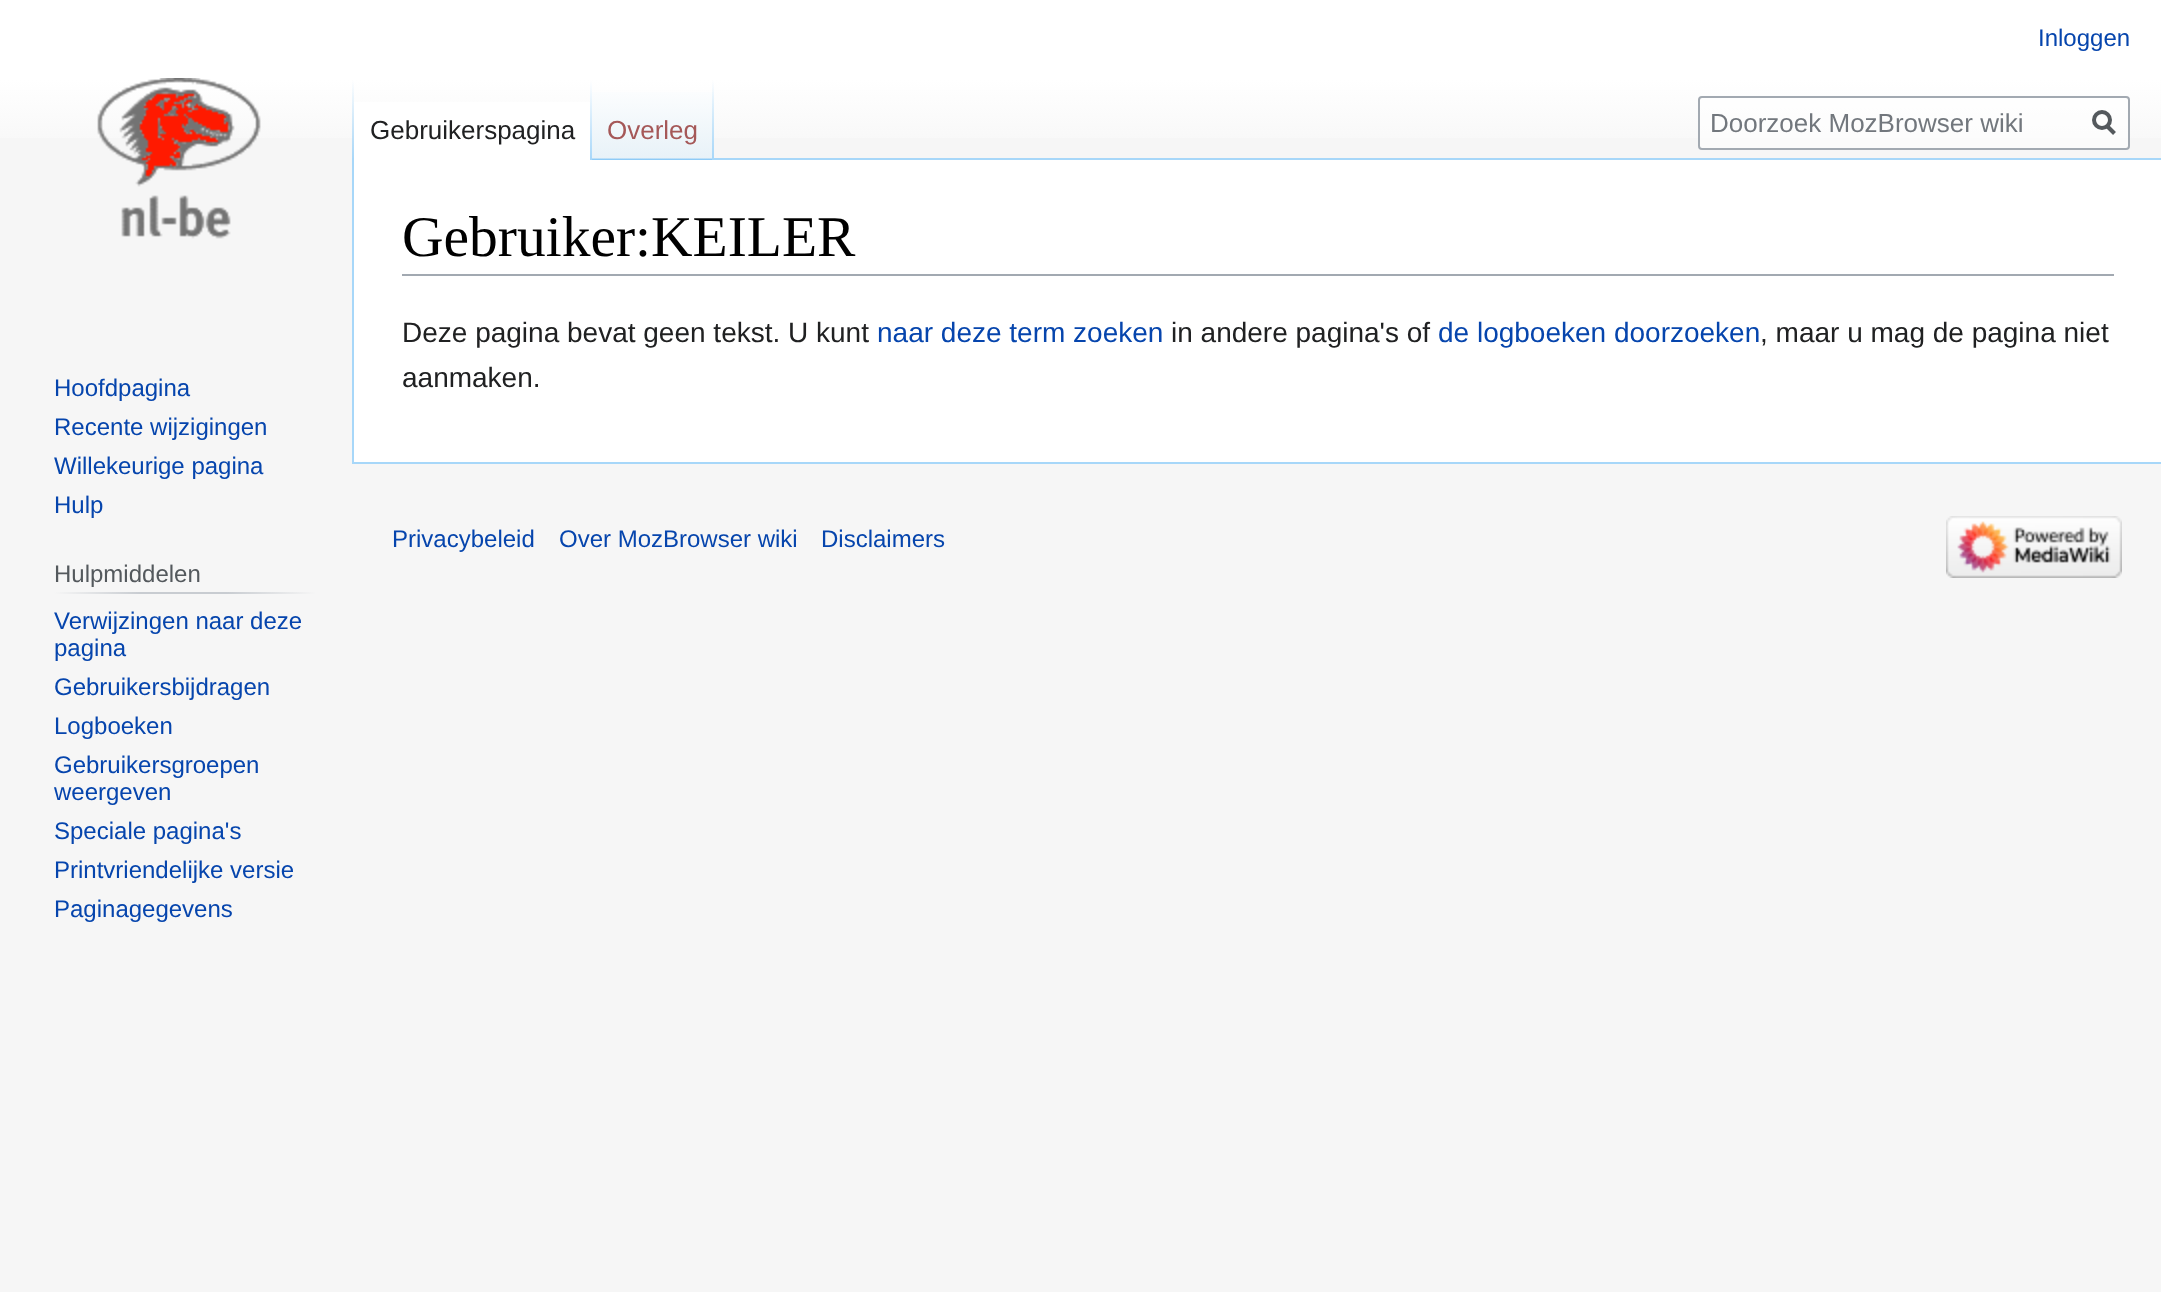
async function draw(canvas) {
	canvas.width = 2161;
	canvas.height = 1292;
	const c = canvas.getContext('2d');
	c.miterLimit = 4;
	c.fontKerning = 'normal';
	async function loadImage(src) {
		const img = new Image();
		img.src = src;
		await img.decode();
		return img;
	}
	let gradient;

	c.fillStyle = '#f6f6f6';
	c.fillRect(0, 0, 2161, 1292);
	gradient = c.createLinearGradient(1081, 0, 1081, 160);
	gradient.addColorStop(0.5, '#fff');
	gradient.addColorStop(1, '#f6f6f6');
	c.fillStyle = gradient;
	c.fillRect(0, 0, 2161, 138);
	c.font = '24px Liberation Sans';
	c.fillStyle = '#0645ad';
	c.fillText('Inloggen', 2038, 46);
	c.fillStyle = '#a7d7f9';
	c.fillRect(352, 462, 1809, 2);
	c.fillRect(352, 158, 2, 306);
	gradient = c.createLinearGradient(353, 80, 353, 160);
	gradient.addColorStop(0, '#a7d7f900');
	gradient.addColorStop(1, '#a7d7f9');
	c.fillStyle = gradient;
	c.fillRect(352, 80, 2, 80);
	c.fillStyle = '#fff';
	c.fillRect(354, 102, 236, 58);
	gradient = c.createLinearGradient(591, 80, 591, 160);
	gradient.addColorStop(0, '#fff');
	gradient.addColorStop(1, '#a7d7f9');
	c.fillStyle = gradient;
	c.fillRect(590, 80, 2, 80);
	c.font = '26px Liberation Sans';
	c.fillStyle = '#202122';
	c.fillText('Gebruikerspagina', 370, 139);
	gradient = c.createLinearGradient(653, 160, 653, 80);
	gradient.addColorStop(0, '#77c1f6');
	gradient.addColorStop(0.03, '#e8f2f8');
	gradient.addColorStop(1, '#fff');
	c.fillStyle = gradient;
	c.fillRect(592, 92, 122, 68);
	gradient = c.createLinearGradient(713, 80, 713, 160);
	gradient.addColorStop(0, '#a7d7f900');
	gradient.addColorStop(1, '#a7d7f9');
	c.fillStyle = gradient;
	c.fillRect(712, 80, 2, 80);
	c.fillStyle = '#a55858';
	c.fillText('Overleg', 607, 139);
	c.fillStyle = '#ffffff80';
	c.beginPath();
	c.roundRect(1699, 97, 430, 52, 3);
	c.fill();
	c.strokeStyle = '#a2a9b1';
	c.lineWidth = 2;
	c.stroke();
	c.fillStyle = '#72777d';
	c.fillText('Doorzoek MozBrowser wiki', 1710, 132);
	c.beginPath();
	c.moveTo(2114.5, 133.5);
	c.lineTo(2106.5, 125.5);
	c.strokeStyle = '#54595d';
	c.lineWidth = 4;
	c.stroke();
	c.beginPath();
	c.arc(2102, 120, 8, 0, 2 * Math.PI);
	c.stroke();
	c.drawImage(await loadImage('img1.png'), 97, 78, 164, 161);
	c.font = '24px Liberation Sans';
	c.fillStyle = '#0645ad';
	for (const [text, x, y] of [
		['Hoofdpagina', 54, 396],
		['Recente wijzigingen', 54, 435],
		['Willekeurige pagina', 54, 474],
		['Hulp', 54, 513],
	]) {
		c.fillText(text, x, y);
	}
	gradient = c.createLinearGradient(54, 593, 316, 593);
	gradient.addColorStop(0, '#f6f6f6');
	gradient.addColorStop(0.33, '#c8ccd1');
	gradient.addColorStop(0.66, '#c8ccd1');
	gradient.addColorStop(1, '#f6f6f6');
	c.fillStyle = gradient;
	c.fillRect(54, 592, 262, 2);
	c.fillStyle = '#54595d';
	c.fillText('Hulpmiddelen', 54, 582);
	c.fillStyle = '#0645ad';
	for (const [text, x, y] of [
		['Verwijzingen naar deze', 54, 629],
		['pagina', 54, 656],
		['Gebruikersbijdragen', 54, 695],
		['Logboeken', 54, 734],
		['Gebruikersgroepen', 54, 773],
		['weergeven', 54, 800],
		['Speciale pagina\'s', 54, 839],
		['Printvriendelijke versie', 54, 878],
		['Paginagegevens', 54, 917],
	]) {
		c.fillText(text, x, y);
	}
	for (const [x, y, w, h, color] of [
		[354, 160, 1807, 302, '#fff'],
		[714, 158, 1447, 2, '#a7d7f9'],
		[402, 274, 1712, 2, '#a2a9b1'],
	]) {
		c.fillStyle = color;
		c.fillRect(x, y, w, h);
	}
	c.font = '57.5px Liberation Serif';
	c.fillStyle = '#000';
	c.fillText('Gebruiker:KEILER', 402, 256);
	c.font = '28px Liberation Sans';
	c.fillStyle = '#202122';
	c.fillText('Deze pagina bevat geen tekst. U kunt', 402, 342);
	c.fillStyle = '#0645ad';
	c.fillText('naar deze term zoeken', 877, 342);
	c.fillStyle = '#202122';
	c.fillText('in andere pagina\'s of', 1171, 342);
	c.fillStyle = '#0645ad';
	c.fillText('de logboeken doorzoeken', 1438, 342);
	c.fillStyle = '#202122';
	c.fillText(', maar u mag de pagina niet', 1760, 342);
	c.fillText('aanmaken.', 402, 387);
	c.font = '24px Liberation Sans';
	c.fillStyle = '#0645ad';
	for (const [text, x, y] of [
		['Privacybeleid', 392, 547],
		['Over MozBrowser wiki', 559, 547],
		['Disclaimers', 821, 547],
	]) {
		c.fillText(text, x, y);
	}
	c.drawImage(await loadImage('img2.png'), 1946, 516, 176, 62);
}

draw(document.querySelector('canvas'));
